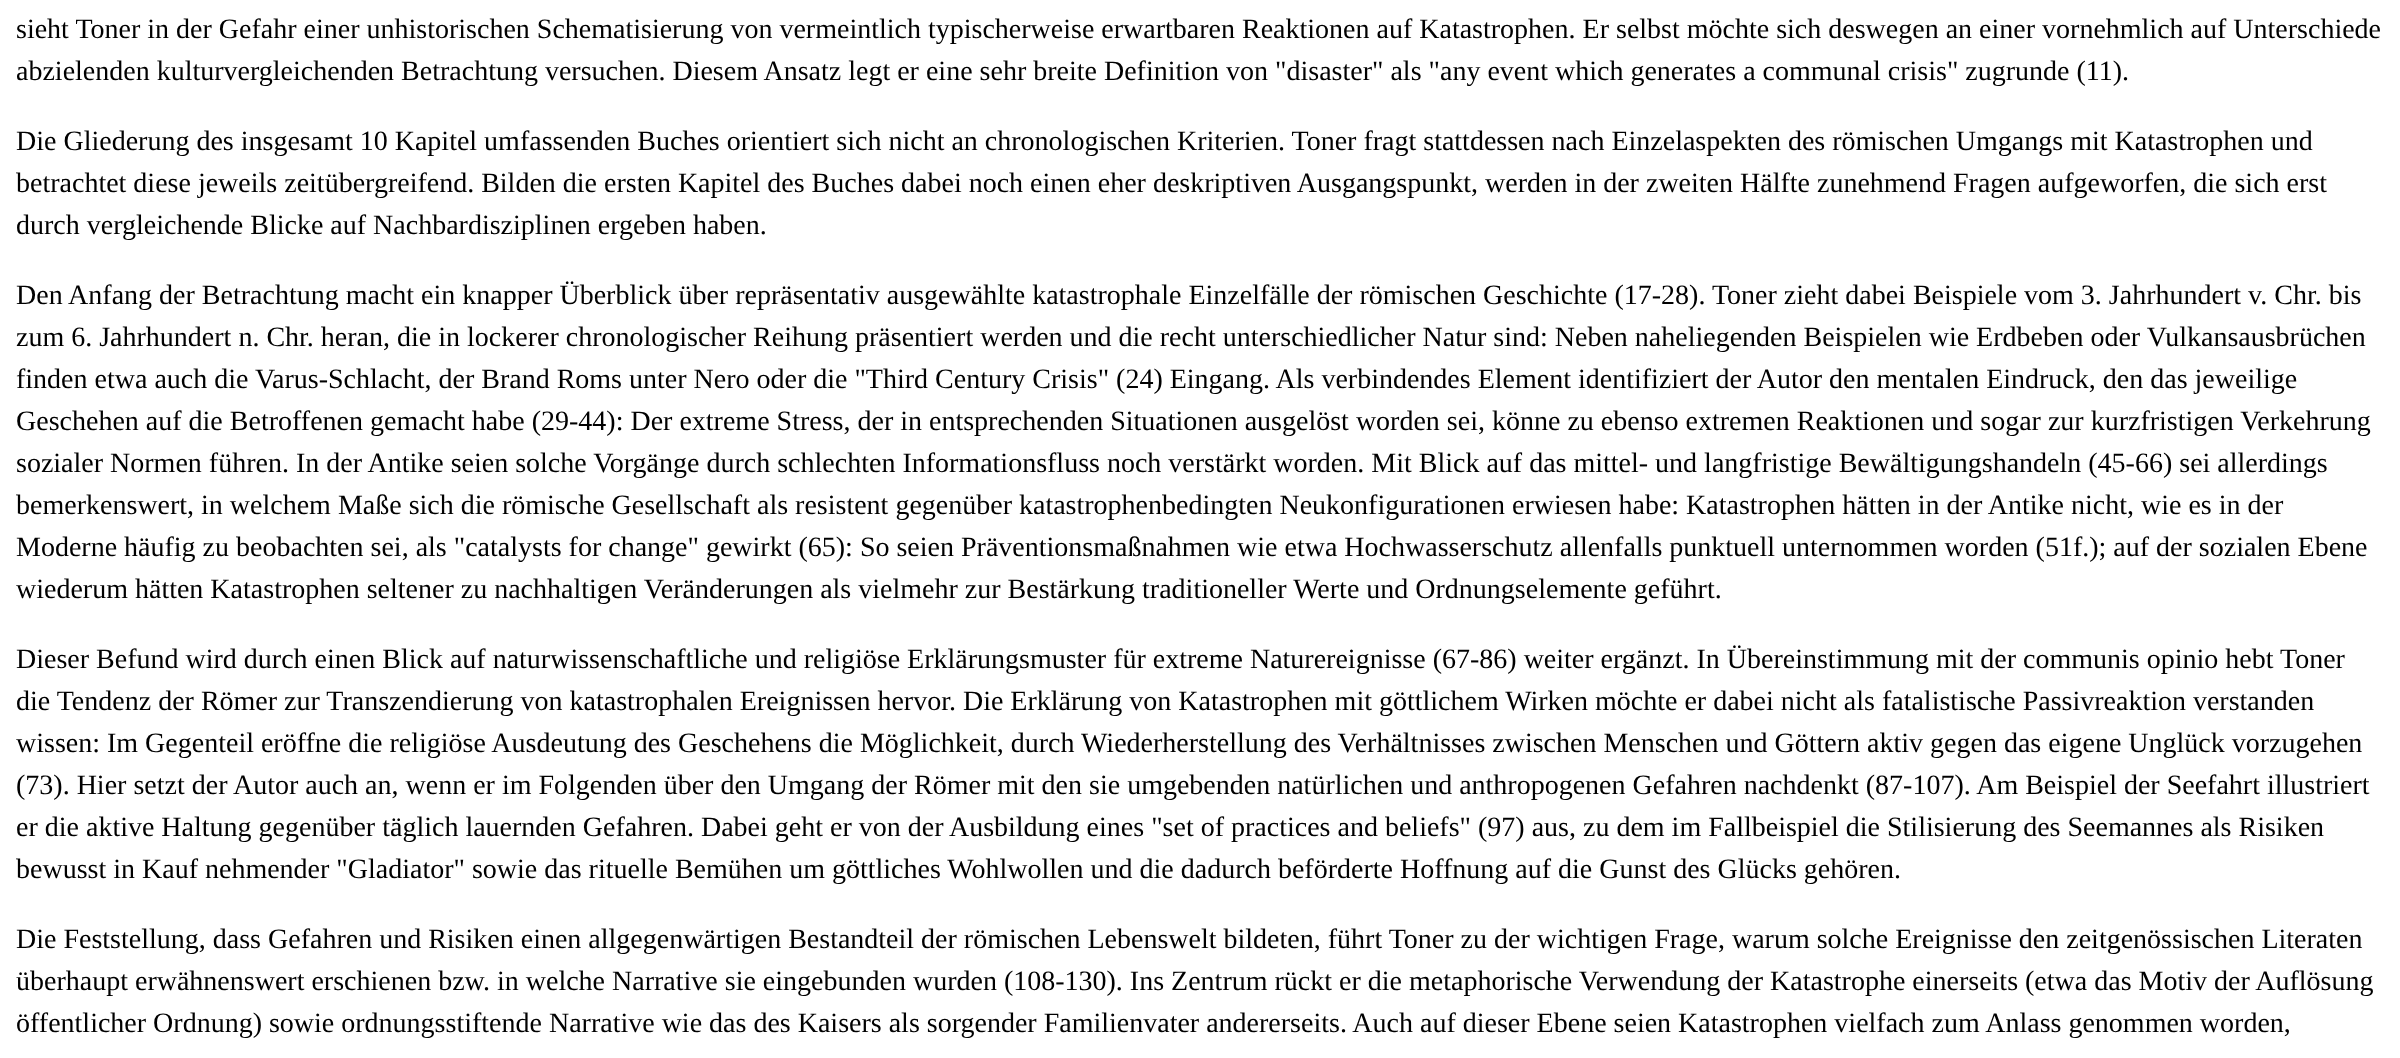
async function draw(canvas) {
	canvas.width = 2400;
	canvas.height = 1058;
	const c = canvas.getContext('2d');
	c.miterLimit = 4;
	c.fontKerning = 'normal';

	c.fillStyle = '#fff';
	c.fillRect(0, 0, 2400, 1058);
	c.font = '28px Liberation Serif';
	c.fillStyle = '#000';
	for (const [text, x, y] of [
		['sieht Toner in der Gefahr einer unhistorischen Schematisierung von vermeintlich typischerweise erwartbaren Reaktionen auf Katastrophen. Er selbst möchte sich deswegen an einer vornehmlich auf Unterschiede', 16, 38],
		['abzielenden kulturvergleichenden Betrachtung versuchen. Diesem Ansatz legt er eine sehr breite Definition von "disaster" als "any event which generates a communal crisis" zugrunde (11).', 16, 80],
		['Die Gliederung des insgesamt 10 Kapitel umfassenden Buches orientiert sich nicht an chronologischen Kriterien. Toner fragt stattdessen nach Einzelaspekten des römischen Umgangs mit Katastrophen und', 16, 150],
		['betrachtet diese jeweils zeitübergreifend. Bilden die ersten Kapitel des Buches dabei noch einen eher deskriptiven Ausgangspunkt, werden in der zweiten Hälfte zunehmend Fragen aufgeworfen, die sich erst', 16, 192],
		['durch vergleichende Blicke auf Nachbardisziplinen ergeben haben.', 16, 234],
		['Den Anfang der Betrachtung macht ein knapper Überblick über repräsentativ ausgewählte katastrophale Einzelfälle der römischen Geschichte (17-28). Toner zieht dabei Beispiele vom 3. Jahrhundert v. Chr. bis', 16, 304],
		['zum 6. Jahrhundert n. Chr. heran, die in lockerer chronologischer Reihung präsentiert werden und die recht unterschiedlicher Natur sind: Neben naheliegenden Beispielen wie Erdbeben oder Vulkansausbrüchen', 16, 346],
		['finden etwa auch die Varus-Schlacht, der Brand Roms unter Nero oder die "Third Century Crisis" (24) Eingang. Als verbindendes Element identifiziert der Autor den mentalen Eindruck, den das jeweilige', 16, 388],
		['Geschehen auf die Betroffenen gemacht habe (29-44): Der extreme Stress, der in entsprechenden Situationen ausgelöst worden sei, könne zu ebenso extremen Reaktionen und sogar zur kurzfristigen Verkehrung', 16, 430],
		['sozialer Normen führen. In der Antike seien solche Vorgänge durch schlechten Informationsfluss noch verstärkt worden. Mit Blick auf das mittel- und langfristige Bewältigungshandeln (45-66) sei allerdings', 16, 472],
		['bemerkenswert, in welchem Maße sich die römische Gesellschaft als resistent gegenüber katastrophenbedingten Neukonfigurationen erwiesen habe: Katastrophen hätten in der Antike nicht, wie es in der', 16, 514],
		['Moderne häufig zu beobachten sei, als "catalysts for change" gewirkt (65): So seien Präventionsmaßnahmen wie etwa Hochwasserschutz allenfalls punktuell unternommen worden (51f.); auf der sozialen Ebene', 16, 556],
		['wiederum hätten Katastrophen seltener zu nachhaltigen Veränderungen als vielmehr zur Bestärkung traditioneller Werte und Ordnungselemente geführt.', 16, 598],
		['Dieser Befund wird durch einen Blick auf naturwissenschaftliche und religiöse Erklärungsmuster für extreme Naturereignisse (67-86) weiter ergänzt. In Übereinstimmung mit der communis opinio hebt Toner', 16, 668],
		['die Tendenz der Römer zur Transzendierung von katastrophalen Ereignissen hervor. Die Erklärung von Katastrophen mit göttlichem Wirken möchte er dabei nicht als fatalistische Passivreaktion verstanden', 16, 710],
		['wissen: Im Gegenteil eröffne die religiöse Ausdeutung des Geschehens die Möglichkeit, durch Wiederherstellung des Verhältnisses zwischen Menschen und Göttern aktiv gegen das eigene Unglück vorzugehen', 16, 752],
		['(73). Hier setzt der Autor auch an, wenn er im Folgenden über den Umgang der Römer mit den sie umgebenden natürlichen und anthropogenen Gefahren nachdenkt (87-107). Am Beispiel der Seefahrt illustriert', 16, 794],
		['er die aktive Haltung gegenüber täglich lauernden Gefahren. Dabei geht er von der Ausbildung eines "set of practices and beliefs" (97) aus, zu dem im Fallbeispiel die Stilisierung des Seemannes als Risiken', 16, 836],
		['bewusst in Kauf nehmender "Gladiator" sowie das rituelle Bemühen um göttliches Wohlwollen und die dadurch beförderte Hoffnung auf die Gunst des Glücks gehören.', 16, 878],
		['Die Feststellung, dass Gefahren und Risiken einen allgegenwärtigen Bestandteil der römischen Lebenswelt bildeten, führt Toner zu der wichtigen Frage, warum solche Ereignisse den zeitgenössischen Literaten', 16, 948],
		['überhaupt erwähnenswert erschienen bzw. in welche Narrative sie eingebunden wurden (108-130). Ins Zentrum rückt er die metaphorische Verwendung der Katastrophe einerseits (etwa das Motiv der Auflösung', 16, 990],
		['öffentlicher Ordnung) sowie ordnungsstiftende Narrative wie das des Kaisers als sorgender Familienvater andererseits. Auch auf dieser Ebene seien Katastrophen vielfach zum Anlass genommen worden,', 16, 1032],
	]) {
		c.fillText(text, x, y);
	}
}

draw(document.querySelector('canvas'));
